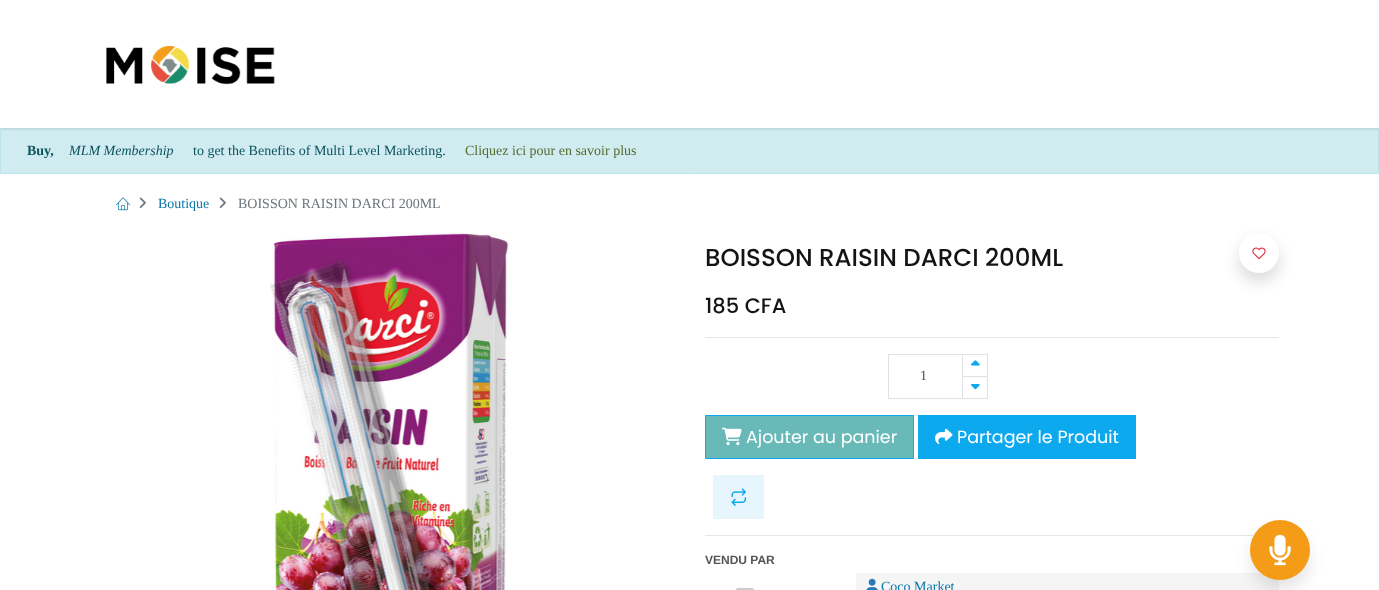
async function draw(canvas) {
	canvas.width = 1379;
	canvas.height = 590;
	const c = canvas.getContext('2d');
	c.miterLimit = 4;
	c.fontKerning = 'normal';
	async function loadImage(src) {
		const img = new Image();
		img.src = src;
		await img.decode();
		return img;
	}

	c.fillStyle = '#fff';
	c.fillRect(0, 0, 1379, 590);
	c.fillStyle = '#d1ecf1';
	c.beginPath();
	c.rect(0.5, 128.5, 1378, 45);
	c.fill();
	c.strokeStyle = '#bee5eb';
	c.stroke();
	c.save();
	c.beginPath();
	c.rect(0, 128, 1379, 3);
	c.clip();
	c.fillStyle = '#00000012';
	c.filter = 'blur(2px)';
	c.beginPath();
	c.rect(0, 2, 1379, 128);
	c.fill();
	c.filter = 'none';
	c.restore();
	c.drawImage(await loadImage('img1.png'), 106, 46, 169, 39);
	c.font = 'bold 14px Liberation Serif';
	c.fillStyle = '#0c5460';
	c.fillText('Buy,', 27, 155);
	c.font = 'italic 14px Liberation Serif';
	c.fillText('MLM Membership', 69, 155);
	c.font = '14px Liberation Serif';
	c.fillText('to get the Benefits of Multi Level Marketing.', 193, 155);
	c.fillStyle = '#556b2f';
	c.fillText('Cliquez ici pour en savoir plus', 465, 155);
	c.drawImage(await loadImage('img2.png'), 116, 197, 14, 14);
	c.drawImage(await loadImage('img3.png'), 139, 197, 7, 11);
	c.fillStyle = '#0976a6';
	c.fillText('Boutique', 158, 208);
	c.drawImage(await loadImage('img3.png'), 219, 197, 7, 11);
	c.fillStyle = '#6c757d';
	c.fillText('BOISSON RAISIN DARCI 200ML', 238, 208);
	c.drawImage(await loadImage('img4.png'), 270, 233, 239, 357);
	c.font = '500 24.5px Poppins';
	c.fillStyle = '#121416';
	c.fillText('BOISSON RAISIN DARCI 200ML', 705, 266);
	c.fillStyle = '#00000026';
	c.filter = 'blur(8px)';
	c.beginPath();
	c.roundRect(1239, 241, 40, 40, 20);
	c.fill();
	c.filter = 'none';
	c.fillStyle = '#fff';
	c.beginPath();
	c.arc(1259, 253, 20, 0, 2 * Math.PI);
	c.fill();
	c.drawImage(await loadImage('img5.png'), 1252, 247, 14, 13);
	c.fillStyle = '#e7f6fd';
	c.fillRect(713, 475, 51, 44);
	c.drawImage(await loadImage('img6.png'), 731, 488, 16, 18);
	c.font = '500 21px Poppins';
	c.fillStyle = '#121416';
	c.fillText('185 CFA', 705, 313);
	c.fillStyle = '#e6e6e6';
	c.fillRect(705, 337, 574, 1);
	c.strokeStyle = '#dee2e6';
	c.strokeRect(888.5, 354.5, 99, 44);
	c.font = '14px Liberation Serif';
	c.fillStyle = '#495057';
	c.fillText('1', 920, 380);
	for (const [x, y, w, h, color] of [
		[962, 376, 1, 22, '#dee2e6'],
		[962, 376, 25, 1, '#dee2e6'],
		[962, 355, 1, 22, '#dee2e6'],
	]) {
		c.fillStyle = color;
		c.fillRect(x, y, w, h);
	}
	c.drawImage(await loadImage('img7.png'), 971, 360, 9, 6);
	c.drawImage(await loadImage('img8.png'), 971, 384, 9, 6);
	c.fillStyle = '#68b9b7';
	c.beginPath();
	c.rect(705.5, 415.5, 208, 43);
	c.fill();
	c.strokeStyle = '#0da9ef';
	c.stroke();
	c.drawImage(await loadImage('img9.png'), 722, 427, 20, 19);
	c.font = '17.5px Poppins';
	c.fillStyle = '#fff';
	c.fillText('Ajouter au panier', 746, 443);
	c.fillStyle = '#0da9ef';
	c.fillRect(918, 415, 218, 44);
	c.drawImage(await loadImage('img10.png'), 935, 428, 18, 17);
	c.fillStyle = '#fff';
	c.fillText('Partager le Produit', 957, 443);
	c.fillStyle = '#e6e6e6';
	c.fillRect(705, 535, 549, 1);
	c.font = 'bold 12px Liberation Sans';
	c.fillStyle = '#555';
	c.fillText('VENDU PAR', 705, 564);
	c.drawImage(await loadImage('img11.png'), 735, 588, 20, 2);
	c.fillStyle = '#f5f5f5';
	c.beginPath();
	c.roundRect(856, 573, 423, 17, [3, 3, 0, 0]);
	c.fill();
	c.drawImage(await loadImage('img12.png'), 866, 578, 12, 12);
	c.font = '14px Liberation Serif';
	c.fillStyle = '#0976a6';
	c.fillText('Coco Market', 881, 591);
	c.fillStyle = '#0000001a';
	c.filter = 'blur(7.5px)';
	c.beginPath();
	c.roundRect(1250, 530, 60, 60, 30);
	c.fill();
	c.filter = 'none';
	c.fillStyle = '#f49c17';
	c.beginPath();
	c.arc(1280, 550, 30, 0, 2 * Math.PI);
	c.fill();
	c.drawImage(await loadImage('img13.png'), 1269, 534, 22, 32);
}

draw(document.querySelector('canvas'));
